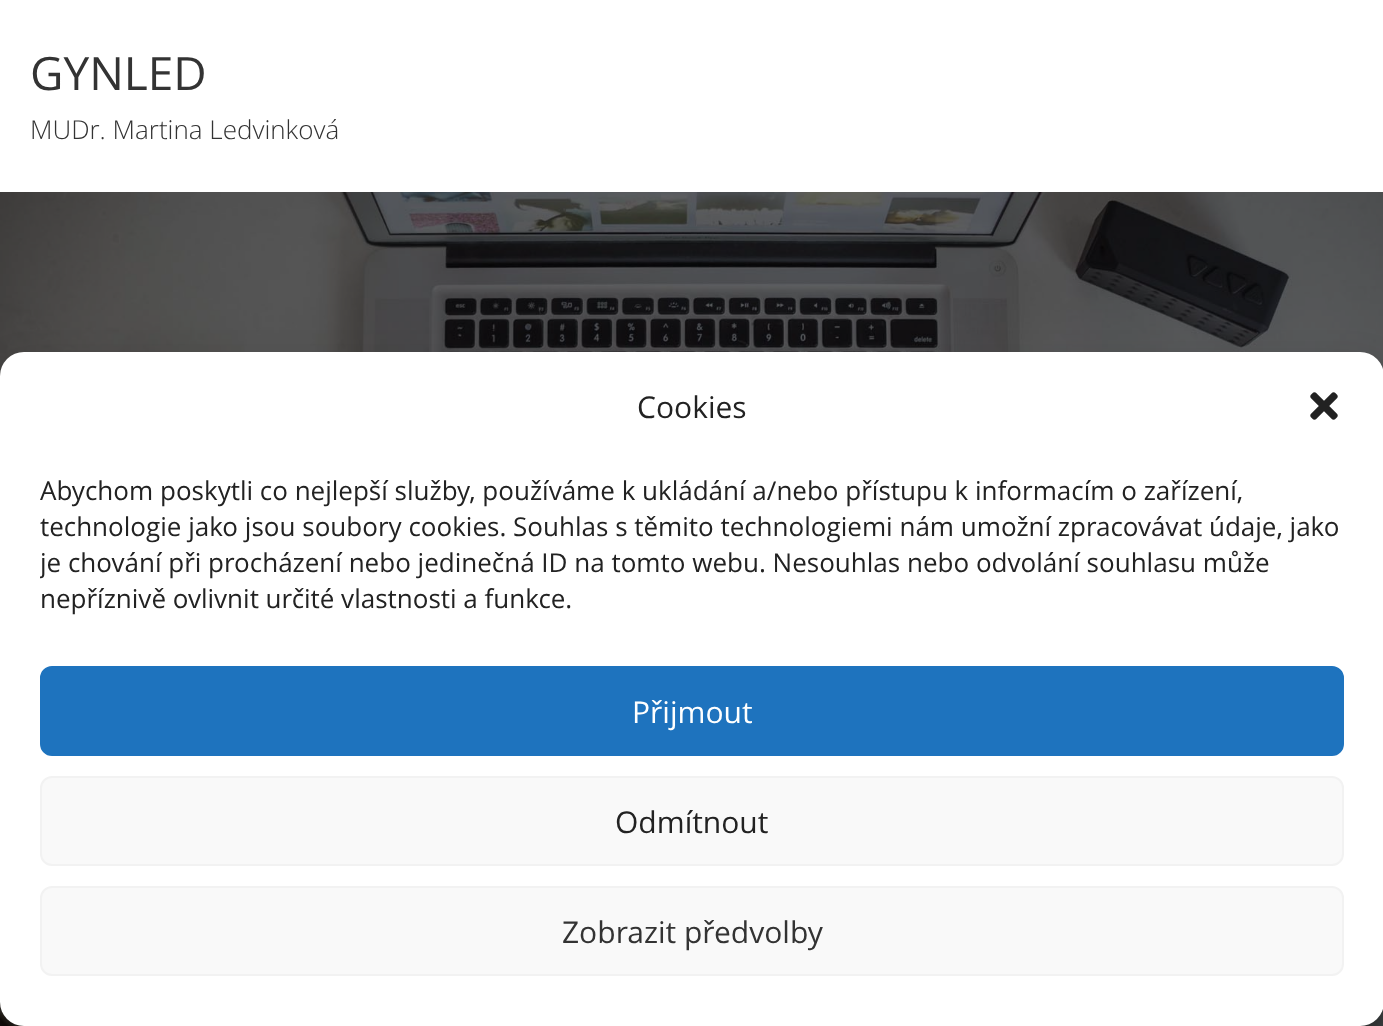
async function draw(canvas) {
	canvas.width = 1383;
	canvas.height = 1026;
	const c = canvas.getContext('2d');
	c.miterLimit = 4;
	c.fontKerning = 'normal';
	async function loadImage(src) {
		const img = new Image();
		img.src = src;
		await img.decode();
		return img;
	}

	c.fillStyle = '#fff';
	c.fillRect(0, 0, 1383, 1026);
	c.font = '46px Open Sans';
	c.fillStyle = '#333';
	c.fillText('GYNLED', 30, 90);
	c.font = '300 26px Open Sans';
	c.fillText('MUDr. Martina Ledvinková', 30, 139);
	c.drawImage(await loadImage('img1.png'), 0, 192, 1383, 834);
	c.fillStyle = '#0000003b';
	c.filter = 'blur(6px)';
	c.beginPath();
	c.roundRect(0, 364, 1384, 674, 24);
	c.fill();
	c.filter = 'none';
	c.fillStyle = '#00000030';
	c.filter = 'blur(20px)';
	c.beginPath();
	c.roundRect(0, 372, 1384, 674, 24);
	c.fill();
	c.filter = 'none';
	c.fillStyle = '#fff';
	c.beginPath();
	c.roundRect(0, 352, 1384, 674, 24);
	c.fill();
	c.font = '30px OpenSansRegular';
	c.fillStyle = '#222';
	c.fillText('Cookies', 637, 418);
	c.drawImage(await loadImage('img2.png'), 1310, 392, 28, 28);
	c.font = '26px OpenSansRegular';
	c.fillText('Abychom poskytli co nejlepší služby, používáme k ukládání a/nebo přístupu k informacím o zařízení,', 40, 500);
	c.fillText('technologie jako jsou soubory cookies. Souhlas s těmito technologiemi nám umožní zpracovávat údaje, jako', 40, 536);
	c.save();
	c.beginPath();
	c.rect(40, 472, 1304, 154);
	c.clip();
	c.fillText('je chování při procházení nebo jedinečná ID na tomto webu. Nesouhlas nebo odvolání souhlasu může', 40, 572);
	c.restore();
	c.fillText('nepříznivě ovlivnit určité vlastnosti a funkce.', 40, 608);
	c.fillStyle = '#1e73be';
	c.beginPath();
	c.roundRect(41, 667, 1302, 88, 11);
	c.fill();
	c.strokeStyle = '#1e73be';
	c.lineWidth = 2;
	c.stroke();
	c.font = '30px OpenSansRegular';
	c.fillStyle = '#fff';
	c.fillText('Přijmout', 632, 723);
	c.fillStyle = '#f9f9f9';
	c.beginPath();
	c.roundRect(41, 777, 1302, 88, 11);
	c.fill();
	c.strokeStyle = '#f2f2f2';
	c.stroke();
	c.fillStyle = '#222';
	c.fillText('Odmítnout', 615, 833);
	c.fillStyle = '#f9f9f9';
	c.beginPath();
	c.roundRect(41, 887, 1302, 88, 11);
	c.fill();
	c.stroke();
	c.fillStyle = '#333';
	c.fillText('Zobrazit předvolby', 562, 943);
}

draw(document.querySelector('canvas'));
